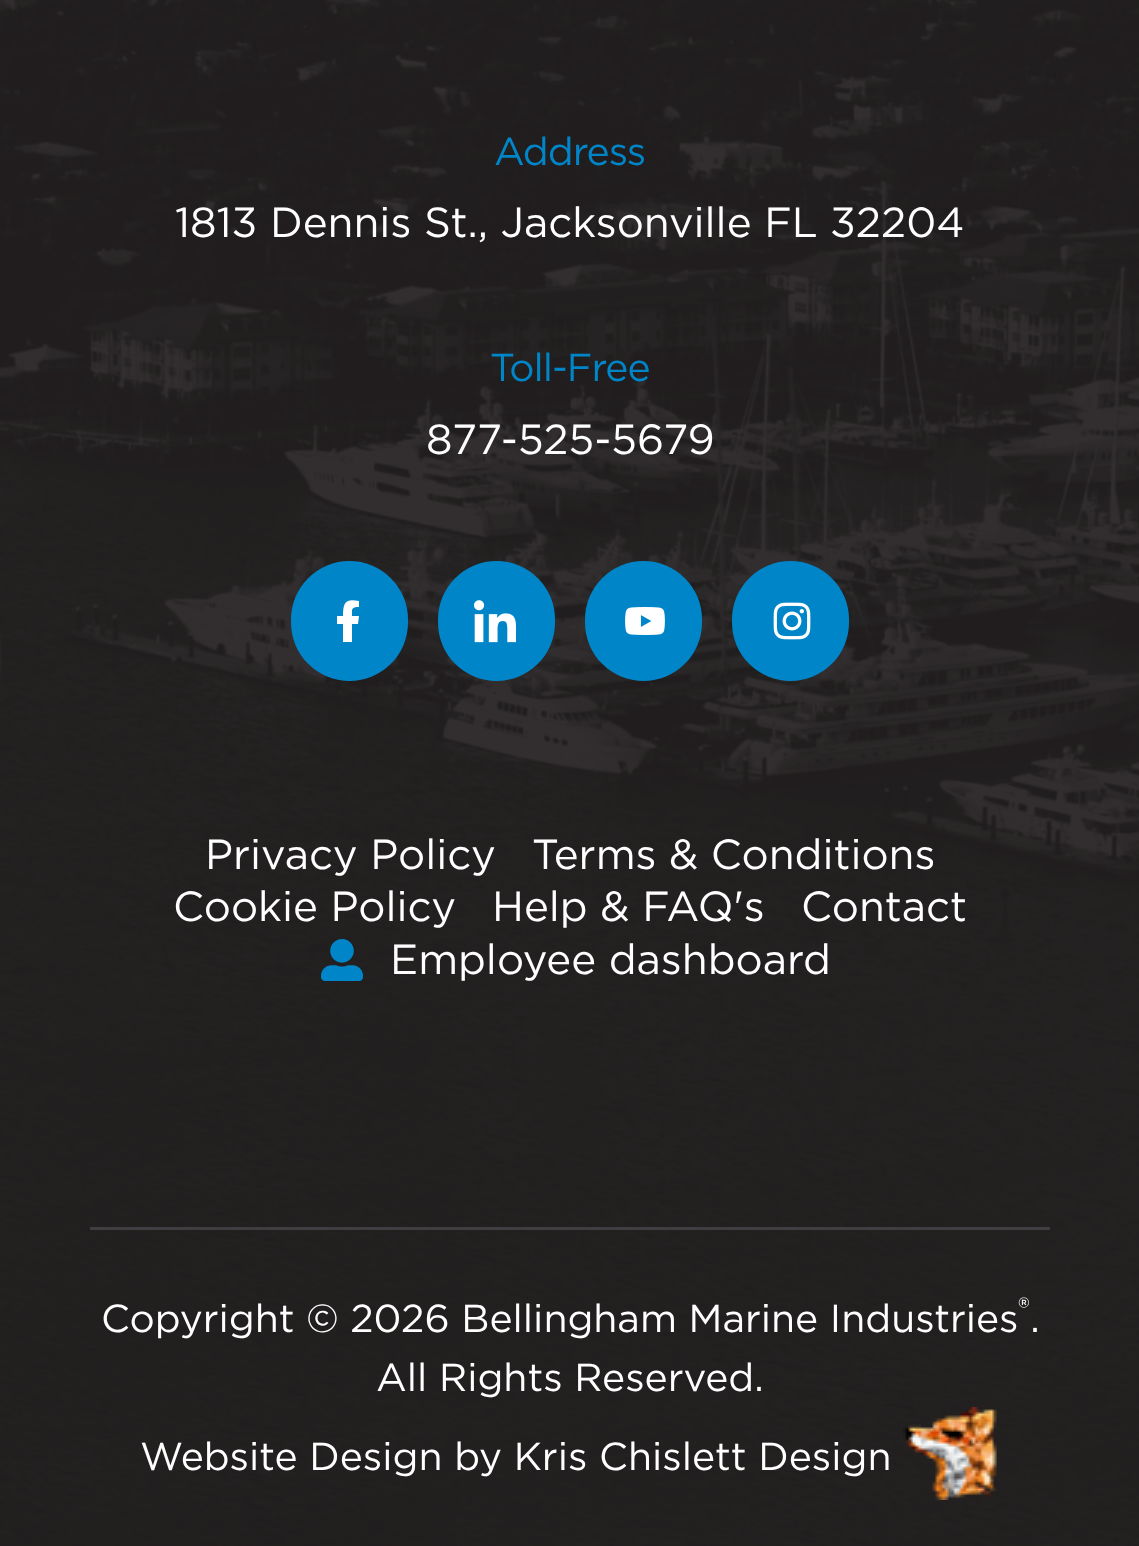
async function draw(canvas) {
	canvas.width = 1139;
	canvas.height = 1546;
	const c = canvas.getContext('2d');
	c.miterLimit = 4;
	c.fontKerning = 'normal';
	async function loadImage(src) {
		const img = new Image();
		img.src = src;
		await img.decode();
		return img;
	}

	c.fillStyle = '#fff';
	c.fillRect(0, 0, 1139, 1546);
	c.drawImage(await loadImage('img1.png'), 0, 0, 1139, 1546);
	c.letterSpacing = '-1px';
	c.font = '39px Gotham';
	c.fillStyle = '#0086c8';
	c.fillText('Address', 494, 165);
	c.letterSpacing = '0px';
	c.font = '42px Gotham';
	c.fillStyle = '#fff';
	c.fillText('1813 Dennis St., Jacksonville FL 32204', 175, 237);
	c.letterSpacing = '-1px';
	c.font = '39px Gotham';
	c.fillStyle = '#0086c8';
	c.fillText('Toll-Free', 490, 381);
	c.letterSpacing = '0px';
	c.font = '42px Gotham';
	c.fillStyle = '#fff';
	c.fillText('877-525-5679', 426, 454);
	c.fillStyle = '#0086c8';
	c.beginPath();
	c.roundRect(291, 561, 117, 120, 58.5);
	c.fill();
	c.fillStyle = '#fff';
	c.beginPath();
	c.moveTo(358, 624);
	c.lineTo(359, 616);
	c.lineTo(352, 616);
	c.bezierCurveTo(352, 609, 351, 607, 359, 607);
	c.lineTo(359, 601);
	c.bezierCurveTo(345, 598, 343, 603, 343, 616);
	c.lineTo(337, 616);
	c.lineTo(337, 624);
	c.lineTo(343, 624);
	c.lineTo(343, 642);
	c.lineTo(352, 642);
	c.lineTo(352, 624);
	c.closePath();
	c.fill();
	c.fillStyle = '#0086c8';
	c.beginPath();
	c.roundRect(438, 561, 117, 120, 58.5);
	c.fill();
	c.drawImage(await loadImage('img2.png'), 474, 600, 42, 43);
	c.beginPath();
	c.roundRect(585, 561, 117, 120, 58.5);
	c.fill();
	c.drawImage(await loadImage('img3.png'), 625, 607, 40, 28);
	c.beginPath();
	c.roundRect(732, 561, 117, 120, 58.5);
	c.fill();
	c.drawImage(await loadImage('img4.png'), 773, 602, 38, 38);
	c.fillStyle = '#fff';
	for (const [text, x, y] of [
		['Privacy Policy', 205, 869],
		['Terms & Conditions', 532, 869],
		['Cookie Policy', 173, 921],
		['Help & FAQ\'s', 492, 921],
		['Contact', 801, 921],
	]) {
		c.fillText(text, x, y);
	}
	c.drawImage(await loadImage('img5.png'), 321, 939, 42, 42);
	c.fillText('Employee dashboard', 390, 974);
	c.fillStyle = '#8081874f';
	c.fillRect(90, 1227, 960, 3);
	c.font = '39px Gotham';
	c.fillStyle = '#fff';
	c.fillText('Copyright © 2026 Bellingham Marine Industries .', 101, 1332);
	c.font = '29px Gotham';
	c.fillText('®', 1018, 1318);
	c.font = '39px Gotham';
	c.fillText('All Rights Reserved.', 376, 1391);
	c.fillText('Website Design by Kris Chislett Design', 140, 1470);
	c.drawImage(await loadImage('img6.png'), 903, 1407, 94, 93);
}

draw(document.querySelector('canvas'));
